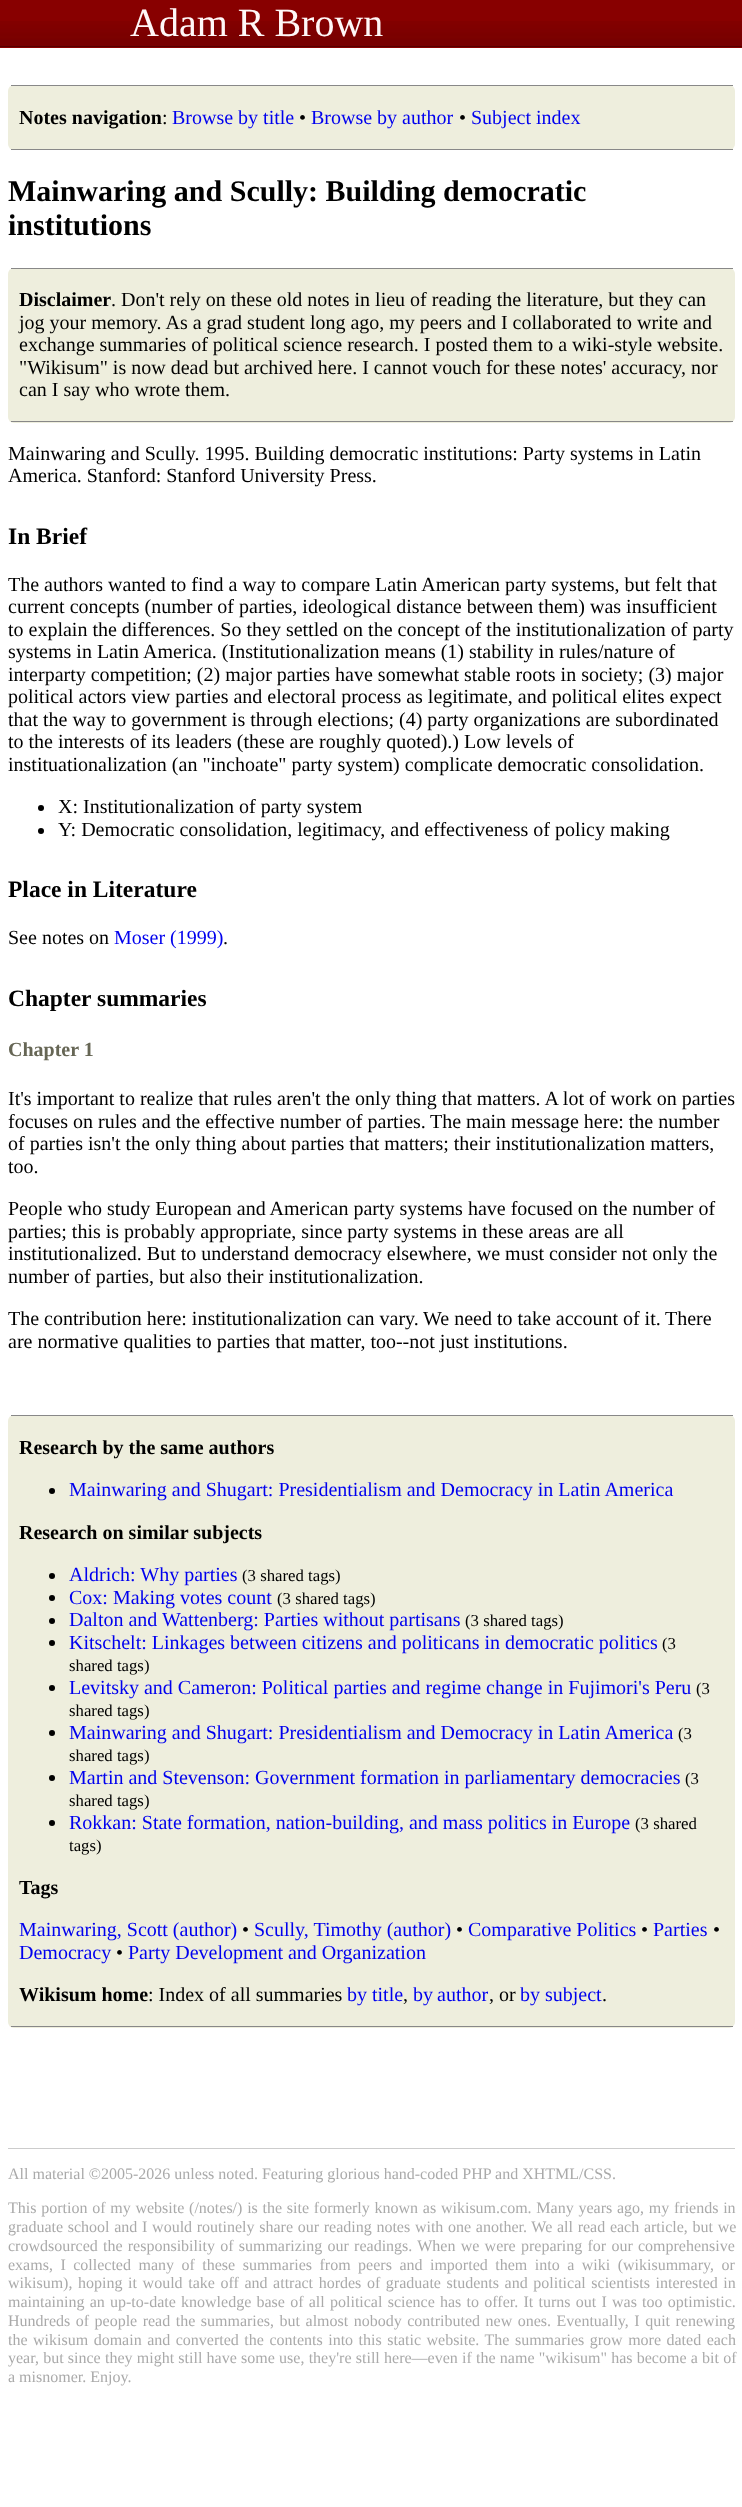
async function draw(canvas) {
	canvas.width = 742;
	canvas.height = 2507;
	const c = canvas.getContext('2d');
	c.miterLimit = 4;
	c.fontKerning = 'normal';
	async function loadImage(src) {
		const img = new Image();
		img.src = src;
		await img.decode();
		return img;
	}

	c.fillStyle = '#fff';
	c.fillRect(0, 0, 742, 2507);
	c.fillStyle = '#800';
	c.fillRect(0, 0, 742, 48);
	c.drawImage(await loadImage('img1.png'), 0, 21, 742, 25);
	c.fillStyle = '#500';
	c.fillRect(0, 46, 742, 1);
	c.font = '40px Liberation Serif';
	c.fillStyle = '#fff7f7';
	c.fillText('Adam R Brown', 130, 36);
	c.fillStyle = '#eed';
	c.beginPath();
	c.roundRect(8, 85, 727, 65, 6);
	c.fill();
	c.fillStyle = '#888';
	c.fillRect(11, 85, 722, 1);
	c.fillRect(11, 149, 722, 1);
	c.font = 'bold 20px Liberation Serif';
	c.fillStyle = '#000';
	c.fillText('Notes navigation', 19, 124);
	c.font = '20px Liberation Serif';
	c.fillText(':', 162, 124);
	c.fillStyle = '#00e';
	c.fillText('Browse by title', 172, 124);
	c.fillStyle = '#000';
	c.fillText('•', 299, 124);
	c.fillStyle = '#00e';
	c.fillText('Browse by author', 311, 124);
	c.fillStyle = '#000';
	c.fillText('•', 459, 124);
	c.fillStyle = '#00e';
	c.fillText('Subject index', 471, 124);
	c.font = 'bold 30px Liberation Serif';
	c.fillStyle = '#000';
	c.fillText('Mainwaring and Scully: Building democratic', 8, 201);
	c.fillText('institutions', 8, 235);
	c.fillStyle = '#eed';
	c.beginPath();
	c.roundRect(8, 268, 727, 155, 6);
	c.fill();
	c.fillStyle = '#888';
	c.fillRect(11, 268, 722, 1);
	c.fillRect(11, 421, 722, 1);
	c.font = 'bold 20px Liberation Serif';
	c.fillStyle = '#000';
	c.fillText('Disclaimer', 19, 306);
	c.font = '20px Liberation Serif';
	for (const [text, x, y] of [
		['. Don\'t rely on these old notes in lieu of reading the literature, but they can', 111, 306],
		['jog your memory. As a grad student long ago, my peers and I collaborated to write and', 19, 329],
		['exchange summaries of political science research. I posted them to a wiki-style website.', 19, 351],
		['"Wikisum" is now dead but archived here. I cannot vouch for these notes\' accuracy, nor', 19, 374],
		['can I say who wrote them.', 19, 396],
		['Mainwaring and Scully. 1995. Building democratic institutions: Party systems in Latin', 8, 460],
		['America. Stanford: Stanford University Press.', 8, 482],
	]) {
		c.fillText(text, x, y);
	}
	c.font = 'bold 23.5px Liberation Serif';
	c.fillText('In Brief', 8, 544);
	c.font = '20px Liberation Serif';
	for (const [text, x, y] of [
		['The authors wanted to find a way to compare Latin American party systems, but felt that', 8, 591],
		['current concepts (number of parties, ideological distance between them) was insufficient', 8, 613],
		['to explain the differences. So they settled on the concept of the institutionalization of party', 8, 636],
		['systems in Latin America. (Institutionalization means (1) stability in rules/nature of', 8, 658],
		['interparty competition; (2) major parties have somewhat stable roots in society; (3) major', 8, 681],
		['political actors view parties and electoral process as legitimate, and political elites expect', 8, 703],
		['that the way to government is through elections; (4) party organizations are subordinated', 8, 726],
		['to the interests of its leaders (these are roughly quoted).) Low levels of', 8, 748],
		['instituationalization (an "inchoate" party system) complicate democratic consolidation.', 8, 771],
	]) {
		c.fillText(text, x, y);
	}
	c.beginPath();
	c.arc(41, 808, 3, 0, 2 * Math.PI);
	c.fill();
	c.fillText('X: Institutionalization of party system', 58, 813);
	c.beginPath();
	c.arc(41, 831, 3, 0, 2 * Math.PI);
	c.fill();
	c.fillText('Y: Democratic consolidation, legitimacy, and effectiveness of policy making', 58, 836);
	c.font = 'bold 23.5px Liberation Serif';
	c.fillText('Place in Literature', 8, 897);
	c.font = '20px Liberation Serif';
	c.fillText('See notes on', 8, 944);
	c.fillStyle = '#00e';
	c.fillText('Moser (1999)', 114, 944);
	c.fillStyle = '#000';
	c.fillText('.', 223, 944);
	c.font = 'bold 23.5px Liberation Serif';
	c.fillText('Chapter summaries', 8, 1006);
	c.font = 'bold 20px Liberation Serif';
	c.fillStyle = '#665';
	c.fillText('Chapter 1', 8, 1056);
	c.font = '20px Liberation Serif';
	c.fillStyle = '#000';
	for (const [text, x, y] of [
		['It\'s important to realize that rules aren\'t the only thing that matters. A lot of work on parties', 8, 1105],
		['focuses on rules and the effective number of parties.', 8, 1128],
		['The main message here: the number', 430, 1128],
		['of parties isn\'t the only thing about parties that matters; their institutionalization matters,', 8, 1150],
		['too.', 8, 1173],
		['People who study European and American party systems have focused on the number of', 8, 1215],
		['parties; this is probably appropriate, since party systems in these areas are all', 8, 1238],
		['institutionalized. But to understand democracy elsewhere, we must consider not only the', 8, 1260],
		['number of parties, but also their institutionalization.', 8, 1283],
		['The contribution here: institutionalization can vary.', 8, 1325],
		['We need to take account of it.', 423, 1325],
		['There', 665, 1325],
		['are normative qualities to parties that matter, too--not just institutions.', 8, 1348],
	]) {
		c.fillText(text, x, y);
	}
	c.fillStyle = '#eed';
	c.beginPath();
	c.roundRect(8, 1415, 727, 613, 6);
	c.fill();
	c.fillStyle = '#888';
	c.fillRect(11, 1415, 722, 1);
	c.fillRect(11, 2026, 722, 1);
	c.font = 'bold 20px Liberation Serif';
	c.fillStyle = '#000';
	c.fillText('Research by the same authors', 19, 1454);
	c.beginPath();
	c.arc(52, 1491, 3, 0, 2 * Math.PI);
	c.fill();
	c.font = '20px Liberation Serif';
	c.fillStyle = '#00e';
	c.fillText('Mainwaring and Shugart: Presidentialism and Democracy in Latin America', 69, 1496);
	c.font = 'bold 20px Liberation Serif';
	c.fillStyle = '#000';
	c.fillText('Research on similar subjects', 19, 1539);
	c.beginPath();
	c.arc(52, 1576, 3, 0, 2 * Math.PI);
	c.fill();
	c.font = '20px Liberation Serif';
	c.fillStyle = '#00e';
	c.fillText('Aldrich: Why parties', 69, 1581);
	c.font = '16.75px Liberation Serif';
	c.fillStyle = '#000';
	c.fillText('(3 shared tags)', 242, 1581);
	c.beginPath();
	c.arc(52, 1598, 3, 0, 2 * Math.PI);
	c.fill();
	c.font = '20px Liberation Serif';
	c.fillStyle = '#00e';
	c.fillText('Cox: Making votes count', 69, 1604);
	c.font = '16.75px Liberation Serif';
	c.fillStyle = '#000';
	c.fillText('(3 shared tags)', 277, 1604);
	c.beginPath();
	c.arc(52, 1621, 3, 0, 2 * Math.PI);
	c.fill();
	c.font = '20px Liberation Serif';
	c.fillStyle = '#00e';
	c.fillText('Dalton and Wattenberg: Parties without partisans', 69, 1626);
	c.font = '16.75px Liberation Serif';
	c.fillStyle = '#000';
	c.fillText('(3 shared tags)', 465, 1626);
	c.beginPath();
	c.arc(52, 1643, 3, 0, 2 * Math.PI);
	c.fill();
	c.font = '20px Liberation Serif';
	c.fillStyle = '#00e';
	c.fillText('Kitschelt: Linkages between citizens and politicans in democratic politics', 69, 1649);
	c.font = '16.75px Liberation Serif';
	c.fillStyle = '#000';
	c.fillText('(3', 662, 1649);
	c.fillText('shared tags)', 69, 1671);
	c.beginPath();
	c.arc(52, 1688, 3, 0, 2 * Math.PI);
	c.fill();
	c.font = '20px Liberation Serif';
	c.fillStyle = '#00e';
	c.fillText('Levitsky and Cameron: Political parties and regime change in Fujimori\'s Peru', 69, 1694);
	c.font = '16.75px Liberation Serif';
	c.fillStyle = '#000';
	c.fillText('(3', 696, 1694);
	c.fillText('shared tags)', 69, 1716);
	c.beginPath();
	c.arc(52, 1733, 3, 0, 2 * Math.PI);
	c.fill();
	c.font = '20px Liberation Serif';
	c.fillStyle = '#00e';
	c.fillText('Mainwaring and Shugart: Presidentialism and Democracy in Latin America', 69, 1739);
	c.font = '16.75px Liberation Serif';
	c.fillStyle = '#000';
	c.fillText('(3', 678, 1739);
	c.fillText('shared tags)', 69, 1761);
	c.beginPath();
	c.arc(52, 1778, 3, 0, 2 * Math.PI);
	c.fill();
	c.font = '20px Liberation Serif';
	c.fillStyle = '#00e';
	c.fillText('Martin and Stevenson: Government formation in parliamentary democracies', 69, 1784);
	c.font = '16.75px Liberation Serif';
	c.fillStyle = '#000';
	c.fillText('(3', 685, 1784);
	c.fillText('shared tags)', 69, 1806);
	c.beginPath();
	c.arc(52, 1823, 3, 0, 2 * Math.PI);
	c.fill();
	c.font = '20px Liberation Serif';
	c.fillStyle = '#00e';
	c.fillText('Rokkan: State formation, nation-building, and mass politics in Europe', 69, 1829);
	c.font = '16.75px Liberation Serif';
	c.fillStyle = '#000';
	c.fillText('(3 shared', 635, 1829);
	c.fillText('tags)', 69, 1851);
	c.font = 'bold 20px Liberation Serif';
	c.fillText('Tags', 19, 1894);
	c.font = '20px Liberation Serif';
	c.fillStyle = '#00e';
	c.fillText('Mainwaring, Scott (author)', 19, 1936);
	c.fillStyle = '#000';
	c.fillText('•', 242, 1936);
	c.fillStyle = '#00e';
	c.fillText('Scully, Timothy (author)', 254, 1936);
	c.fillStyle = '#000';
	c.fillText('•', 456, 1936);
	c.fillStyle = '#00e';
	c.fillText('Comparative Politics', 468, 1936);
	c.fillStyle = '#000';
	c.fillText('•', 641, 1936);
	c.fillStyle = '#00e';
	c.fillText('Parties', 653, 1936);
	c.fillStyle = '#000';
	c.fillText('•', 713, 1936);
	c.fillStyle = '#00e';
	c.fillText('Democracy', 19, 1959);
	c.fillStyle = '#000';
	c.fillText('•', 116, 1959);
	c.fillStyle = '#00e';
	c.fillText('Party Development and Organization', 128, 1959);
	c.font = 'bold 20px Liberation Serif';
	c.fillStyle = '#000';
	c.fillText('Wikisum home', 19, 2001);
	c.font = '20px Liberation Serif';
	c.fillText(': Index of all summaries', 148, 2001);
	c.fillStyle = '#00e';
	c.fillText('by title', 347, 2001);
	c.fillStyle = '#000';
	c.fillText(',', 403, 2001);
	c.wordSpacing = '-1px';
	c.fillStyle = '#00e';
	c.fillText('by author', 413, 2001);
	c.wordSpacing = '0px';
	c.fillStyle = '#000';
	c.fillText(', or', 489, 2001);
	c.fillStyle = '#00e';
	c.fillText('by subject', 520, 2001);
	c.fillStyle = '#000';
	c.fillText('.', 602, 2001);
	c.fillStyle = '#ccc';
	c.fillRect(8, 2148, 727, 1);
	c.font = '16px Liberation Serif';
	c.fillStyle = '#aaa';
	c.fillText('All material ©2005-2026 unless noted. Featuring glorious hand-coded PHP and XHTML/CSS.', 8, 2179);
	c.wordSpacing = '0.75px';
	c.fillText('This portion of my website (/notes/) is the site formerly known as wikisum.com. Many years ago, my friends in', 8, 2213);
	c.wordSpacing = '0.7px';
	c.fillText('graduate school and I would routinely share our reading notes with one another. We all read each article, but we', 8, 2232);
	c.wordSpacing = '1.25px';
	c.fillText('crowdsourced the responsibility of summarizing our readings. When we were preparing for our comprehensive', 8, 2251);
	c.wordSpacing = '3.5px';
	c.fillText('exams, I collected many of these summaries from peers and imported them into a wiki (wikisummary, or', 8, 2270);
	c.wordSpacing = '1.6px';
	c.fillText('wikisum), hoping it would take off and attract hordes of graduate students and political scientists interested in', 8, 2288);
	c.wordSpacing = '1.25px';
	c.fillText('maintaining an up-to-date knowledge base of all political science has to offer. It turns out I was too optimistic.', 8, 2307);
	c.wordSpacing = '1.5px';
	c.fillText('Hundreds of people read the summaries, but almost nobody contributed new ones. Eventually, I quit renewing', 8, 2326);
	c.fillText('the wikisum domain and converted the contents into this static website. The summaries grow more dated each', 8, 2345);
	c.wordSpacing = '0.25px';
	c.fillText('year, but since they might still have some use, they\'re still here—even if the name "wikisum" has become a bit of', 8, 2363);
	c.wordSpacing = '0px';
	c.fillText('a misnomer. Enjoy.', 8, 2382);
}

draw(document.querySelector('canvas'));
